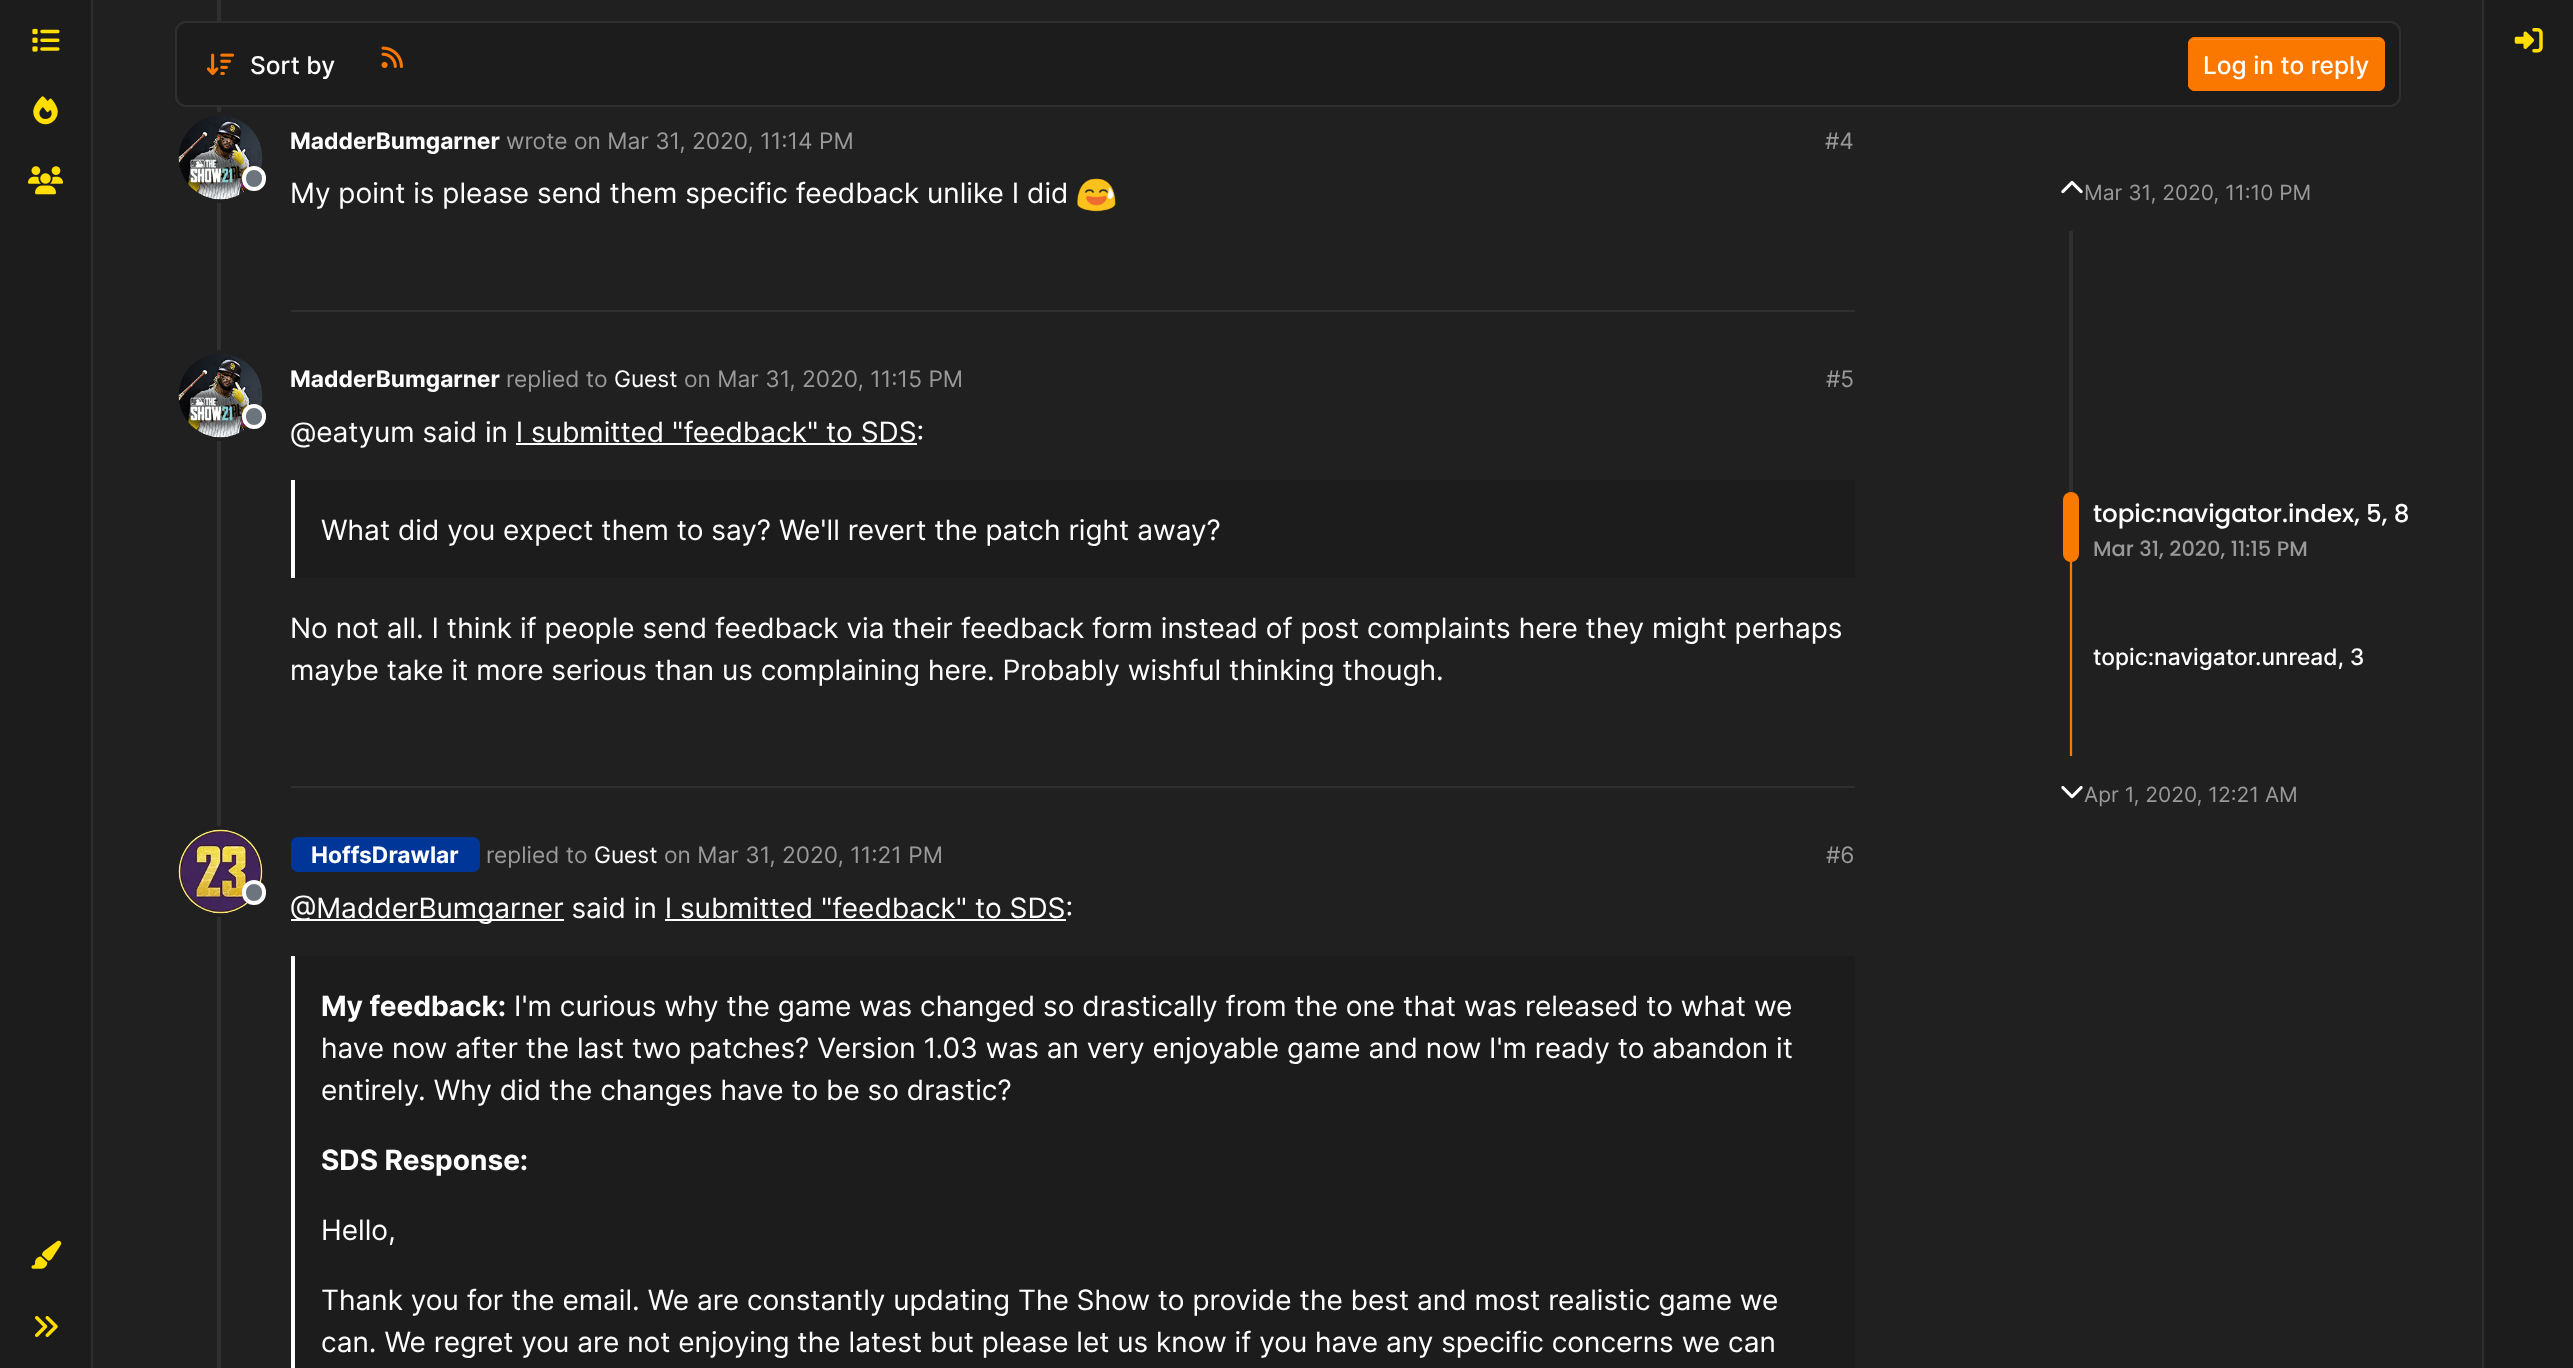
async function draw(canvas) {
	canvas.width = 2573;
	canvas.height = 1368;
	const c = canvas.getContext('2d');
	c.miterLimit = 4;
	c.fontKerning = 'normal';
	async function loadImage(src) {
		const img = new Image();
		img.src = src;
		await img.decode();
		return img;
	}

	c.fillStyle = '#202020';
	c.fillRect(0, 0, 2573, 1368);
	c.fillStyle = '#1d1c1c';
	c.fillRect(0, 0, 91, 1368);
	c.fillStyle = '#2f2f2f';
	c.fillRect(91, 0, 2, 1368);
	c.drawImage(await loadImage('img1.png'), 32, 28, 28, 24);
	c.drawImage(await loadImage('img2.png'), 33, 96, 25, 29);
	c.drawImage(await loadImage('img3.png'), 28, 166, 35, 29);
	c.drawImage(await loadImage('img4.png'), 31, 1240, 31, 29);
	c.drawImage(await loadImage('img5.png'), 35, 1316, 23, 21);
	c.fillStyle = '#1d1c1c';
	c.beginPath();
	c.roundRect(176, 22, 2224, 84, 10);
	c.fill();
	c.strokeStyle = '#2f2f2f';
	c.lineWidth = 2;
	c.stroke();
	c.drawImage(await loadImage('img6.png'), 206, 53, 28, 22);
	c.font = '500 24.5px Inter';
	c.fillStyle = '#fff';
	c.fillText('Sort by', 250, 74);
	c.drawImage(await loadImage('img7.png'), 381, 46, 22, 22);
	c.fillStyle = '#fb7800';
	c.beginPath();
	c.roundRect(2188, 37, 197, 54, 7);
	c.fill();
	c.fillStyle = '#fc8c26';
	c.beginPath();
	c.moveTo(2194, 40);
	c.lineTo(2378, 40);
	c.bezierCurveTo(2381, 40, 2384, 43, 2384, 46);
	c.lineTo(2384, 44);
	c.bezierCurveTo(2384, 41, 2382, 39, 2379, 39);
	c.lineTo(2194, 39);
	c.bezierCurveTo(2191, 39, 2189, 41, 2189, 44);
	c.lineTo(2189, 46);
	c.bezierCurveTo(2189, 43, 2192, 40, 2194, 40);
	c.closePath();
	c.fill();
	c.beginPath();
	c.roundRect(2189, 38, 195, 52, 6);
	c.strokeStyle = '#fb7800';
	c.stroke();
	c.fillStyle = '#fff';
	c.fillText('Log in to reply', 2203, 74);
	c.fillStyle = '#2f2f2f';
	c.fillRect(217, 0, 4, 21);
	c.fillRect(217, 107, 4, 1261);
	c.beginPath();
	c.arc(220.5, 157.5, 43.5, 0, 2 * Math.PI);
	c.strokeStyle = '#202020';
	c.lineWidth = 4;
	c.stroke();
	c.drawImage(await loadImage('img8.png'), 178, 116, 85, 84);
	c.fillStyle = '#6c757d';
	c.beginPath();
	c.roundRect(244, 168, 20, 21, 10);
	c.fill();
	c.strokeStyle = '#fff';
	c.stroke();
	c.font = 'bold 22.75px Inter';
	c.fillStyle = '#fff';
	c.fillText('MadderBumgarner', 290, 149);
	c.font = '22.75px Inter';
	c.fillStyle = '#999';
	c.fillText('wrote on Mar 31, 2020, 11:14 PM', 506, 149);
	c.fillText('#4', 1825, 149);
	c.font = '28px Inter';
	c.fillStyle = '#fff';
	c.fillText('My point is please send them specific feedback unlike I did', 290, 203);
	c.drawImage(await loadImage('img9.png'), 1077, 178, 39, 34);
	c.fillStyle = '#2f2f2f';
	c.fillRect(291, 310, 1564, 2);
	c.beginPath();
	c.arc(220.5, 395.5, 43.5, 0, 2 * Math.PI);
	c.strokeStyle = '#202020';
	c.stroke();
	c.drawImage(await loadImage('img8.png'), 178, 354, 85, 84);
	c.fillStyle = '#6c757d';
	c.beginPath();
	c.roundRect(244, 406, 20, 21, 10);
	c.fill();
	c.strokeStyle = '#fff';
	c.stroke();
	c.font = 'bold 22.75px Inter';
	c.fillStyle = '#fff';
	c.fillText('MadderBumgarner', 290, 387);
	c.font = '22.75px Inter';
	c.fillStyle = '#999';
	c.fillText('replied to', 506, 387);
	c.fillStyle = '#fff';
	c.fillText('Guest', 614, 387);
	c.fillStyle = '#999';
	c.fillText('on Mar 31, 2020, 11:15 PM', 684, 387);
	c.fillText('#5', 1826, 387);
	c.font = '28px Inter';
	c.fillStyle = '#fff';
	c.fillText('@eatyum said in I submitted "feedback" to SDS:', 290, 442);
	for (const [x, y, w, h, color] of [
		[516, 443, 401, 2, '#fff'],
		[295, 480, 1560, 98, '#1d1c1c'],
		[291, 480, 4, 98, '#fff'],
	]) {
		c.fillStyle = color;
		c.fillRect(x, y, w, h);
	}
	for (const [text, x, y] of [
		['What did you expect them to say? We\'ll revert the patch right away?', 321, 540],
		['No not all. I think if people send feedback via their feedback form instead of post complaints here they might perhaps', 290, 638],
		['maybe take it more serious than us complaining here. Probably wishful thinking though.', 290, 680],
	]) {
		c.fillText(text, x, y);
	}
	c.fillStyle = '#2f2f2f';
	c.fillRect(291, 786, 1564, 2);
	c.beginPath();
	c.arc(220.5, 871.5, 43.5, 0, 2 * Math.PI);
	c.strokeStyle = '#202020';
	c.stroke();
	c.drawImage(await loadImage('img10.png'), 178, 829, 85, 85);
	c.fillStyle = '#6c757d';
	c.beginPath();
	c.roundRect(244, 882, 20, 21, 10);
	c.fill();
	c.strokeStyle = '#fff';
	c.stroke();
	c.fillStyle = '#003697';
	c.beginPath();
	c.roundRect(291, 837, 189, 35, 7);
	c.fill();
	c.font = 'bold 22.75px Inter';
	c.fillStyle = '#fff';
	c.fillText('HoffsDrawlar', 311, 863);
	c.font = '22.75px Inter';
	c.fillStyle = '#999';
	c.fillText('replied to', 486, 863);
	c.fillStyle = '#fff';
	c.fillText('Guest', 594, 863);
	c.fillStyle = '#999';
	c.fillText('on Mar 31, 2020, 11:21 PM', 664, 863);
	c.fillText('#6', 1826, 863);
	c.fillStyle = '#fff';
	c.fillRect(291, 919, 273, 2);
	c.font = '28px Inter';
	c.fillText('@MadderBumgarner said in I submitted "feedback" to SDS:', 290, 918);
	for (const [x, y, w, h, color] of [
		[665, 919, 401, 2, '#fff'],
		[295, 956, 1560, 412, '#1d1c1c'],
		[291, 956, 4, 412, '#fff'],
	]) {
		c.fillStyle = color;
		c.fillRect(x, y, w, h);
	}
	c.font = 'bold 28px Inter';
	c.fillText('My feedback:', 321, 1016);
	c.font = '28px Inter';
	for (const [text, x, y] of [
		['I\'m curious why the game was changed so drastically from the one that was released to what we', 514, 1016],
		['have now after the last two patches? Version 1.03 was an very enjoyable game and now I\'m ready to abandon it', 321, 1058],
		['entirely. Why did the changes have to be so drastic?', 321, 1100],
	]) {
		c.fillText(text, x, y);
	}
	c.font = 'bold 28px Inter';
	c.fillText('SDS Response:', 321, 1170);
	c.font = '28px Inter';
	for (const [text, x, y] of [
		['Hello,', 321, 1240],
		['Thank you for the email. We are constantly updating The Show to provide the best and most realistic game we', 321, 1310],
		['can. We regret you are not enjoying the latest but please let us know if you have any specific concerns we can', 321, 1352],
	]) {
		c.fillText(text, x, y);
	}
	c.drawImage(await loadImage('img11.png'), 2061, 180, 22, 14);
	c.font = '21px Inter';
	c.fillStyle = '#999';
	c.fillText('Mar 31, 2020, 11:10 PM', 2084, 200);
	c.fillStyle = '#2f2f2f';
	c.fillRect(2069, 231, 4, 525);
	c.fillStyle = '#fb7900';
	c.beginPath();
	c.roundRect(2063, 492, 16, 70, 8);
	c.fill();
	c.font = '500 24.5px Poppins';
	c.fillStyle = '#fff';
	c.fillText('topic:navigator.index, 5, 8', 2093, 522);
	c.font = '500 21px Poppins';
	c.fillStyle = '#999';
	c.fillText('Mar 31, 2020, 11:15 PM', 2093, 556);
	c.fillStyle = '#fb7800';
	c.fillRect(2070, 560, 2, 196);
	c.font = '500 22.75px Inter';
	c.fillStyle = '#fff';
	c.fillText('topic:navigator.unread, 3', 2093, 665);
	c.drawImage(await loadImage('img12.png'), 2061, 786, 22, 13);
	c.font = '21px Inter';
	c.fillStyle = '#999';
	c.fillText('Apr 1, 2020, 12:21 AM', 2084, 802);
	c.fillStyle = '#1d1c1c';
	c.fillRect(2484, 0, 89, 1368);
	c.fillStyle = '#2f2f2f';
	c.fillRect(2482, 0, 2, 1368);
	c.drawImage(await loadImage('img13.png'), 2514, 28, 29, 25);
}

draw(document.querySelector('canvas'));
